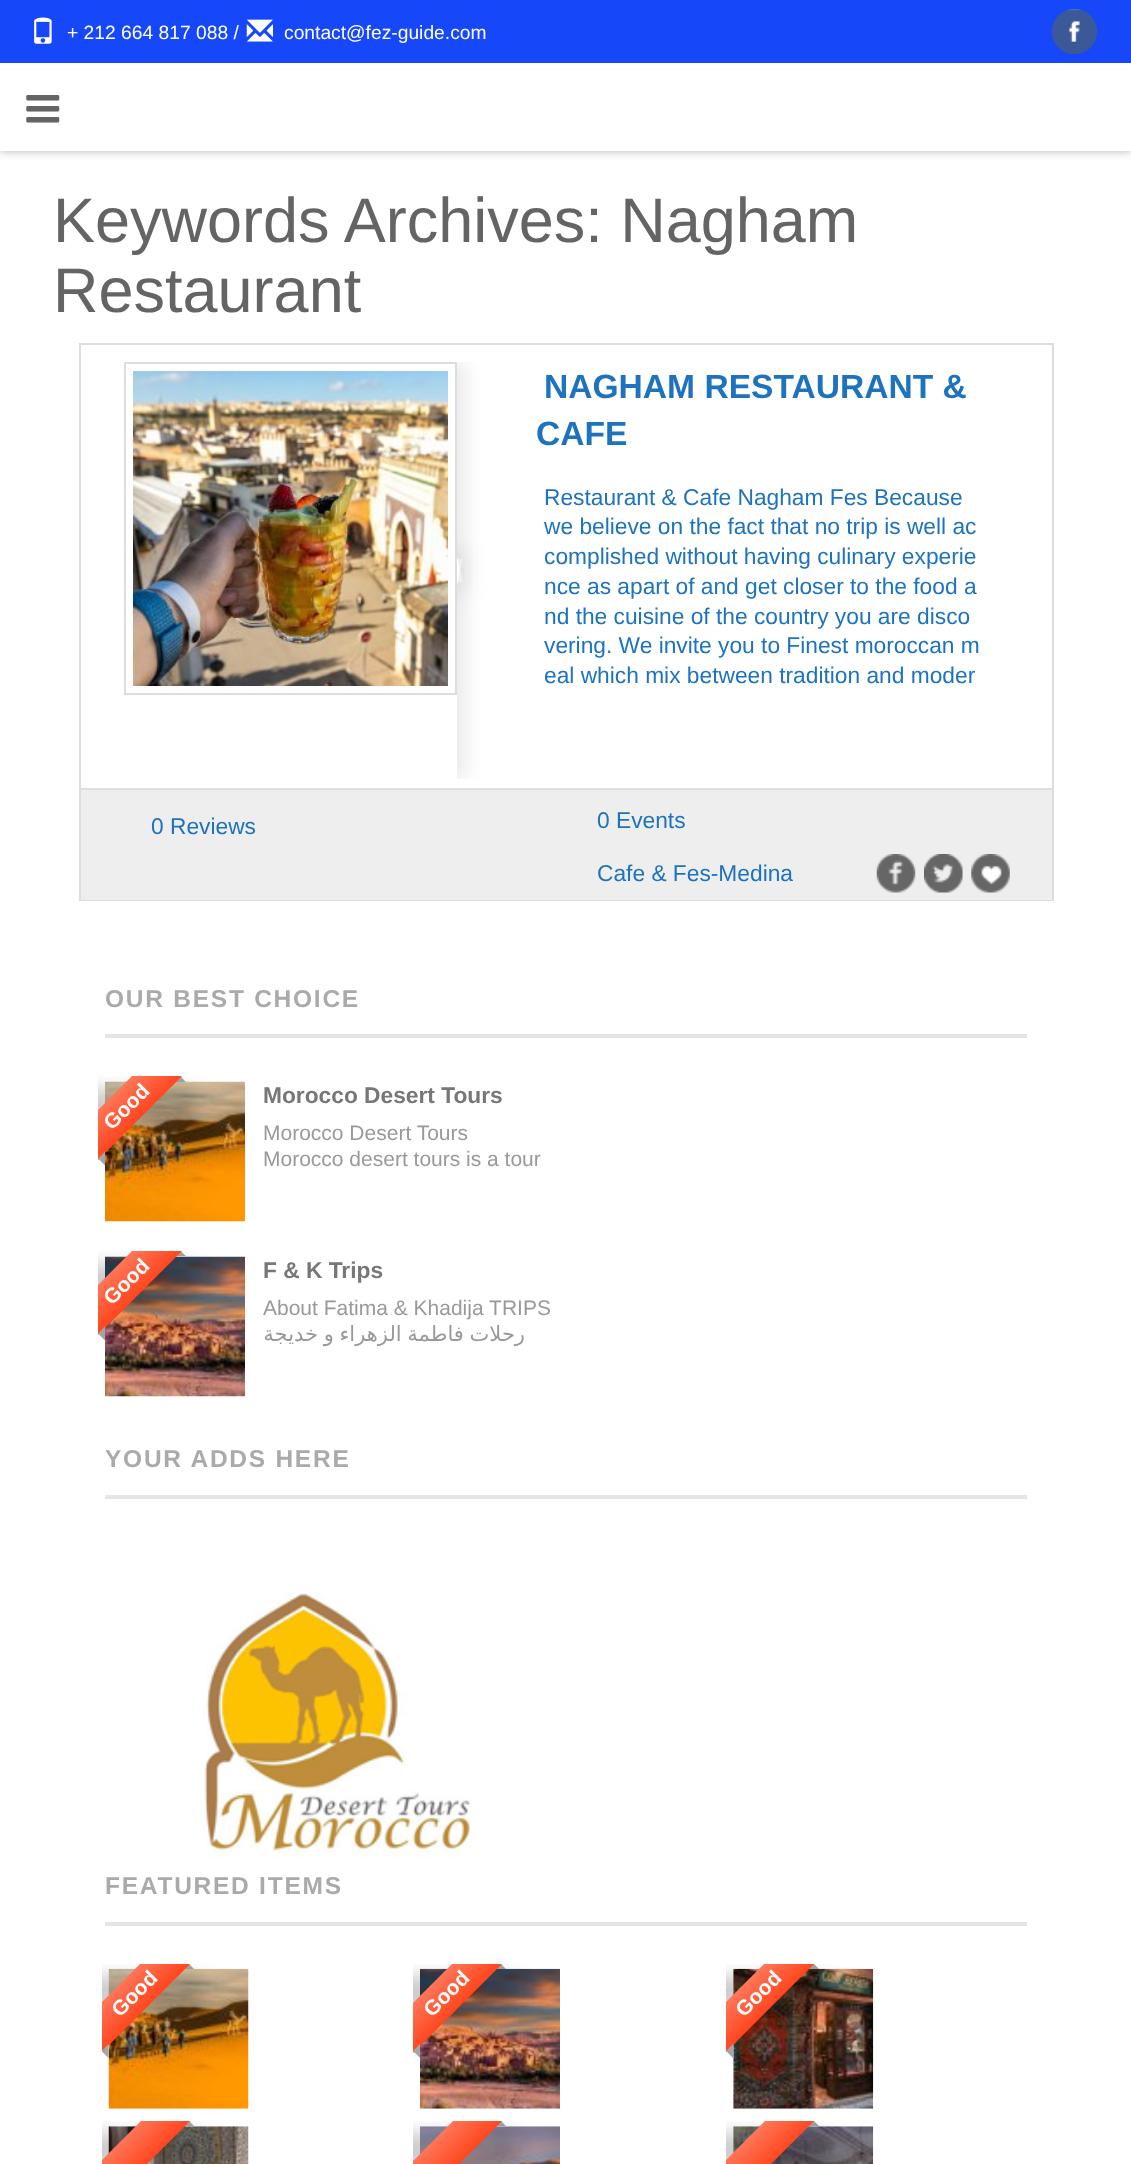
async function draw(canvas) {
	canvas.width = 1131;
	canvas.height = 2164;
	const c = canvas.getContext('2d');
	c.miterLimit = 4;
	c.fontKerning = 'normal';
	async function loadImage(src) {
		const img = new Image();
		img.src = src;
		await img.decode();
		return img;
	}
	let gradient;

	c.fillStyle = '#fff';
	c.fillRect(0, 0, 1131, 2164);
	c.fillStyle = '#0000004d';
	c.filter = 'blur(5px)';
	c.beginPath();
	c.rect(0, 63, 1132, 88);
	c.fill();
	c.filter = 'none';
	c.fillStyle = '#1647f9';
	c.fillRect(0, 0, 1131, 63);
	c.drawImage(await loadImage('img1.png'), 34, 17, 18, 27);
	c.font = '19.25px Liberation Sans';
	c.fillStyle = '#fff';
	c.fillText('+ 212 664 817 088 /', 67, 39);
	c.drawImage(await loadImage('img2.png'), 246, 19, 27, 23);
	c.fillText('contact@fez-guide.com', 284, 39);
	c.drawImage(await loadImage('img3.png'), 1051, 9, 47, 46);
	c.fillRect(0, 63, 1131, 88);
	c.drawImage(await loadImage('img4.png'), 26, 95, 34, 28);
	c.font = '63px Liberation Sans';
	c.fillStyle = '#646464';
	c.fillText('Keywords Archives: Nagham', 53, 242);
	c.fillText('Restaurant', 53, 312);
	c.save();
	c.beginPath();
	c.rect(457, 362, 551, 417);
	c.clip();
	c.beginPath();
	c.moveTo(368, 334);
	c.lineTo(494, 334);
	c.lineTo(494, 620);
	c.lineTo(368, 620);
	c.closePath();
	c.moveTo(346, 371.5);
	c.lineTo(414.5, 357);
	c.lineTo(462.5, 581.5);
	c.lineTo(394, 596);
	c.closePath();
	c.clip('evenodd');
	c.fillStyle = '#96969633';
	c.filter = 'blur(9px)';
	c.beginPath();
	c.rect(396, 362, 70, 230);
	c.fill();
	c.filter = 'none';
	c.restore();
	c.save();
	c.beginPath();
	c.rect(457, 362, 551, 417);
	c.clip();
	c.beginPath();
	c.moveTo(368, 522);
	c.lineTo(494, 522);
	c.lineTo(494, 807);
	c.lineTo(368, 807);
	c.closePath();
	c.moveTo(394, 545);
	c.lineTo(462.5, 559.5);
	c.lineTo(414.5, 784);
	c.lineTo(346, 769.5);
	c.closePath();
	c.clip('evenodd');
	c.fillStyle = '#96969633';
	c.filter = 'blur(9px)';
	c.beginPath();
	c.rect(396, 550, 70, 229);
	c.fill();
	c.filter = 'none';
	c.restore();
	c.strokeStyle = '#ddd';
	c.lineWidth = 2;
	c.strokeRect(80, 344, 973, 556);
	c.strokeRect(125, 363, 331, 331);
	c.drawImage(await loadImage('img5.png'), 133, 371, 315, 315);
	c.font = 'bold 33.6px Liberation Sans';
	c.fillStyle = '#1e73be';
	c.fillText('NAGHAM RESTAURANT &', 544, 398);
	c.fillText('CAFE', 536, 445);
	c.font = '22.75px Liberation Sans';
	for (const [text, x, y] of [
		['Restaurant & Cafe Nagham Fes Because', 544, 505],
		['we believe on the fact that no trip is well ac', 544, 534],
		['complished without having culinary experie', 544, 564],
		['nce as apart of and get closer to the food a', 544, 594],
		['nd the cuisine of the country you are disco', 544, 624],
		['vering. We invite you to Finest moroccan m', 544, 653],
		['eal which mix between tradition and moder', 544, 683],
	]) {
		c.fillText(text, x, y);
	}
	c.fillStyle = '#eee';
	c.fillRect(81, 790, 971, 110);
	c.fillStyle = '#ddd';
	c.fillRect(81, 788, 971, 2);
	c.fillStyle = '#1e73be';
	for (const [text, x, y] of [
		['0 Reviews', 151, 834],
		['0 Events', 597, 828],
		['Cafe & Fes-Medina', 597, 881],
	]) {
		c.fillText(text, x, y);
	}
	c.drawImage(await loadImage('img6.png'), 876, 854, 40, 39);
	c.drawImage(await loadImage('img7.png'), 924, 854, 39, 39);
	c.drawImage(await loadImage('img8.png'), 971, 854, 39, 39);
	c.letterSpacing = '1.75px';
	c.font = 'bold 24.5px Liberation Sans';
	c.fillStyle = '#aaa';
	c.fillText('OUR BEST CHOICE', 105, 1007);
	c.fillStyle = '#e5e5e5';
	c.fillRect(105, 1034, 922, 4);
	c.drawImage(await loadImage('img9.png'), 105, 1081, 140, 141);
	c.save();
	c.beginPath();
	c.rect(98, 1076, 140, 245);
	c.clip();
	c.fillStyle = '#a5a5a5';
	c.beginPath();
	c.moveTo(186, 1082);
	c.lineTo(144, 1082);
	c.lineTo(164, 1060);
	c.closePath();
	c.fill();
	c.restore();
	c.save();
	c.beginPath();
	c.rect(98, 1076, 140, 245);
	c.clip();
	c.fillStyle = '#00000033';
	c.filter = 'blur(9px)';
	c.beginPath();
	c.rect(56, 1089, 140, 35);
	c.fill();
	c.filter = 'none';
	c.restore();
	c.save();
	c.beginPath();
	c.rect(98, 1076, 140, 245);
	c.clip();
	gradient = c.createLinearGradient(114, 1094, 138, 1119);
	gradient.addColorStop(0, '#ff7659');
	gradient.addColorStop(1, '#ff471f');
	c.fillStyle = gradient;
	c.beginPath();
	c.moveTo(64, 1144);
	c.lineTo(163, 1045);
	c.lineTo(188, 1070);
	c.lineTo(89, 1169);
	c.closePath();
	c.fill();
	c.restore();
	c.letterSpacing = '0px';
	c.font = 'bold 21px Liberation Sans';
	c.fillStyle = '#fff';
	c.save();
	c.translate(112, 1131);
	c.rotate(-45 * Math.PI / 180);
	c.fillText('Good', 0, 0);
	c.restore();
	c.fillStyle = '#a5a5a5';
	c.beginPath();
	c.moveTo(105, 1151.5);
	c.lineTo(105, 1165.5);
	c.lineTo(98, 1158.5);
	c.closePath();
	c.fill();
	c.font = 'bold 22.75px Liberation Sans';
	c.fillStyle = '#777';
	c.fillText('Morocco Desert Tours', 263, 1103);
	c.font = '21px Liberation Sans';
	c.fillStyle = '#999';
	c.fillText('Morocco Desert Tours', 263, 1140);
	c.fillText('Morocco desert tours is a tour', 263, 1166);
	c.drawImage(await loadImage('img10.png'), 105, 1256, 140, 141);
	c.save();
	c.beginPath();
	c.rect(98, 1251, 140, 245);
	c.clip();
	c.fillStyle = '#a5a5a5';
	c.beginPath();
	c.moveTo(186, 1256);
	c.lineTo(144, 1256);
	c.lineTo(164, 1236);
	c.closePath();
	c.fill();
	c.restore();
	c.save();
	c.beginPath();
	c.rect(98, 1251, 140, 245);
	c.clip();
	c.fillStyle = '#00000033';
	c.filter = 'blur(9px)';
	c.beginPath();
	c.rect(56, 1264, 140, 35);
	c.fill();
	c.filter = 'none';
	c.restore();
	c.save();
	c.beginPath();
	c.rect(98, 1251, 140, 245);
	c.clip();
	gradient = c.createLinearGradient(114, 1269, 138, 1294);
	gradient.addColorStop(0, '#ff7659');
	gradient.addColorStop(1, '#ff471f');
	c.fillStyle = gradient;
	c.beginPath();
	c.moveTo(64, 1319);
	c.lineTo(163, 1220);
	c.lineTo(188, 1245);
	c.lineTo(89, 1344);
	c.closePath();
	c.fill();
	c.restore();
	c.font = 'bold 21px Liberation Sans';
	c.fillStyle = '#fff';
	c.save();
	c.translate(112, 1306);
	c.rotate(-45 * Math.PI / 180);
	c.fillText('Good', 0, 0);
	c.restore();
	c.fillStyle = '#a5a5a5';
	c.beginPath();
	c.moveTo(105, 1326.5);
	c.lineTo(105, 1340.5);
	c.lineTo(98, 1333.5);
	c.closePath();
	c.fill();
	c.font = 'bold 22.75px Liberation Sans';
	c.fillStyle = '#777';
	c.fillText('F & K Trips', 263, 1278);
	c.font = '21px Liberation Sans';
	c.fillStyle = '#999';
	c.fillText('About Fatima & Khadija TRIPS', 263, 1315);
	c.wordSpacing = '-1px';
	c.direction = 'rtl';
	c.font = '21px DejaVu Sans';
	c.fillText('رحلات فاطمة الزهراء و خديجة', 525, 1341);
	c.letterSpacing = '1.75px';
	c.wordSpacing = '0px';
	c.direction = 'ltr';
	c.font = 'bold 24.5px Liberation Sans';
	c.fillStyle = '#aaa';
	c.fillText('YOUR ADDS HERE', 105, 1467);
	c.fillStyle = '#e5e5e5';
	c.fillRect(105, 1495, 922, 4);
	c.drawImage(await loadImage('img11.png'), 204, 1591, 270, 267);
	c.fillStyle = '#aaa';
	c.fillText('FEATURED ITEMS', 105, 1894);
	c.fillStyle = '#e5e5e5';
	c.fillRect(105, 1922, 922, 4);
	c.drawImage(await loadImage('img12.png'), 108, 1968, 141, 141);
	c.save();
	c.beginPath();
	c.rect(102, 1964, 140, 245);
	c.clip();
	c.fillStyle = '#a5a5a5';
	c.beginPath();
	c.moveTo(194, 1969);
	c.lineTo(152, 1969);
	c.lineTo(173, 1948);
	c.closePath();
	c.fill();
	c.restore();
	c.save();
	c.beginPath();
	c.rect(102, 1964, 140, 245);
	c.clip();
	c.fillStyle = '#00000033';
	c.filter = 'blur(9px)';
	c.beginPath();
	c.rect(65, 1976, 140, 35);
	c.fill();
	c.filter = 'none';
	c.restore();
	c.save();
	c.beginPath();
	c.rect(102, 1964, 140, 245);
	c.clip();
	gradient = c.createLinearGradient(122, 1982, 147, 2006);
	gradient.addColorStop(0, '#ff7659');
	gradient.addColorStop(1, '#ff471f');
	c.fillStyle = gradient;
	c.beginPath();
	c.moveTo(73, 2031);
	c.lineTo(172, 1932);
	c.lineTo(197, 1957);
	c.lineTo(98, 2056);
	c.closePath();
	c.fill();
	c.restore();
	c.letterSpacing = '0px';
	c.font = 'bold 21px Liberation Sans';
	c.fillStyle = '#fff';
	c.save();
	c.translate(120, 2018);
	c.rotate(-45 * Math.PI / 180);
	c.fillText('Good', 0, 0);
	c.restore();
	c.fillStyle = '#a5a5a5';
	c.beginPath();
	c.moveTo(108.5, 2044);
	c.lineTo(108.5, 2058);
	c.lineTo(101.5, 2051);
	c.closePath();
	c.fill();
	c.drawImage(await loadImage('img13.png'), 420, 1968, 140, 141);
	c.save();
	c.beginPath();
	c.rect(413, 1964, 140, 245);
	c.clip();
	c.beginPath();
	c.moveTo(506, 1969);
	c.lineTo(464, 1969);
	c.lineTo(485, 1948);
	c.closePath();
	c.fill();
	c.restore();
	c.save();
	c.beginPath();
	c.rect(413, 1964, 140, 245);
	c.clip();
	c.fillStyle = '#00000033';
	c.filter = 'blur(9px)';
	c.beginPath();
	c.rect(376, 1976, 140, 35);
	c.fill();
	c.filter = 'none';
	c.restore();
	c.save();
	c.beginPath();
	c.rect(413, 1964, 140, 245);
	c.clip();
	gradient = c.createLinearGradient(434, 1982, 459, 2006);
	gradient.addColorStop(0, '#ff7659');
	gradient.addColorStop(1, '#ff471f');
	c.fillStyle = gradient;
	c.beginPath();
	c.moveTo(385, 2031);
	c.lineTo(484, 1932);
	c.lineTo(509, 1957);
	c.lineTo(410, 2056);
	c.closePath();
	c.fill();
	c.restore();
	c.fillStyle = '#fff';
	c.save();
	c.translate(432, 2018);
	c.rotate(-45 * Math.PI / 180);
	c.fillText('Good', 0, 0);
	c.restore();
	c.fillStyle = '#a5a5a5';
	c.beginPath();
	c.moveTo(420, 2044);
	c.lineTo(420, 2058);
	c.lineTo(413, 2051);
	c.closePath();
	c.fill();
	c.drawImage(await loadImage('img14.png'), 733, 1968, 141, 141);
	c.save();
	c.beginPath();
	c.rect(726, 1964, 140, 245);
	c.clip();
	c.beginPath();
	c.moveTo(819, 1969);
	c.lineTo(777, 1969);
	c.lineTo(798, 1948);
	c.closePath();
	c.fill();
	c.restore();
	c.save();
	c.beginPath();
	c.rect(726, 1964, 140, 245);
	c.clip();
	c.fillStyle = '#00000033';
	c.filter = 'blur(9px)';
	c.beginPath();
	c.rect(690, 1976, 140, 35);
	c.fill();
	c.filter = 'none';
	c.restore();
	c.save();
	c.beginPath();
	c.rect(726, 1964, 140, 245);
	c.clip();
	gradient = c.createLinearGradient(747, 1982, 771, 2006);
	gradient.addColorStop(0, '#ff7659');
	gradient.addColorStop(1, '#ff471f');
	c.fillStyle = gradient;
	c.beginPath();
	c.moveTo(697, 2031);
	c.lineTo(796, 1932);
	c.lineTo(821, 1957);
	c.lineTo(722, 2056);
	c.closePath();
	c.fill();
	c.restore();
	c.fillStyle = '#fff';
	c.save();
	c.translate(744, 2018);
	c.rotate(-45 * Math.PI / 180);
	c.fillText('Good', 0, 0);
	c.restore();
	c.fillStyle = '#a5a5a5';
	c.beginPath();
	c.moveTo(733, 2044);
	c.lineTo(733, 2058);
	c.lineTo(726, 2051);
	c.closePath();
	c.fill();
	c.save();
	c.beginPath();
	c.rect(102, 2121, 140, 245);
	c.clip();
	c.beginPath();
	c.moveTo(194, 2126);
	c.lineTo(152, 2126);
	c.lineTo(173, 2105);
	c.closePath();
	c.fill();
	c.restore();
	c.drawImage(await loadImage('img15.png'), 108, 2126, 141, 38);
	c.save();
	c.beginPath();
	c.rect(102, 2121, 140, 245);
	c.clip();
	c.fillStyle = '#00000033';
	c.filter = 'blur(9px)';
	c.beginPath();
	c.rect(65, 2133, 140, 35);
	c.fill();
	c.filter = 'none';
	c.restore();
	c.save();
	c.beginPath();
	c.rect(102, 2121, 140, 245);
	c.clip();
	gradient = c.createLinearGradient(122, 2139, 147, 2164);
	gradient.addColorStop(0, '#ff7659');
	gradient.addColorStop(1, '#ff471f');
	c.fillStyle = gradient;
	c.beginPath();
	c.moveTo(73, 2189);
	c.lineTo(172, 2090);
	c.lineTo(197, 2114);
	c.lineTo(98, 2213);
	c.closePath();
	c.fill();
	c.restore();
	c.save();
	c.beginPath();
	c.rect(413, 2121, 140, 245);
	c.clip();
	c.beginPath();
	c.moveTo(506, 2126);
	c.lineTo(464, 2126);
	c.lineTo(485, 2105);
	c.closePath();
	c.fill();
	c.restore();
	c.drawImage(await loadImage('img16.png'), 420, 2126, 140, 38);
	c.save();
	c.beginPath();
	c.rect(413, 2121, 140, 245);
	c.clip();
	c.fillStyle = '#00000033';
	c.filter = 'blur(9px)';
	c.beginPath();
	c.rect(376, 2133, 140, 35);
	c.fill();
	c.filter = 'none';
	c.restore();
	c.save();
	c.beginPath();
	c.rect(413, 2121, 140, 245);
	c.clip();
	gradient = c.createLinearGradient(434, 2139, 459, 2164);
	gradient.addColorStop(0, '#ff7659');
	gradient.addColorStop(1, '#ff471f');
	c.fillStyle = gradient;
	c.beginPath();
	c.moveTo(385, 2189);
	c.lineTo(484, 2090);
	c.lineTo(509, 2114);
	c.lineTo(410, 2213);
	c.closePath();
	c.fill();
	c.restore();
	c.save();
	c.beginPath();
	c.rect(726, 2121, 140, 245);
	c.clip();
	c.beginPath();
	c.moveTo(819, 2126);
	c.lineTo(777, 2126);
	c.lineTo(798, 2105);
	c.closePath();
	c.fill();
	c.restore();
	c.drawImage(await loadImage('img17.png'), 733, 2126, 141, 38);
	c.save();
	c.beginPath();
	c.rect(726, 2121, 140, 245);
	c.clip();
	c.fillStyle = '#00000033';
	c.filter = 'blur(9px)';
	c.beginPath();
	c.rect(690, 2133, 140, 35);
	c.fill();
	c.filter = 'none';
	c.restore();
	c.save();
	c.beginPath();
	c.rect(726, 2121, 140, 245);
	c.clip();
	gradient = c.createLinearGradient(747, 2139, 771, 2164);
	gradient.addColorStop(0, '#ff7659');
	gradient.addColorStop(1, '#ff471f');
	c.fillStyle = gradient;
	c.beginPath();
	c.moveTo(697, 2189);
	c.lineTo(796, 2090);
	c.lineTo(821, 2114);
	c.lineTo(722, 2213);
	c.closePath();
	c.fill();
	c.restore();
}

draw(document.querySelector('canvas'));
